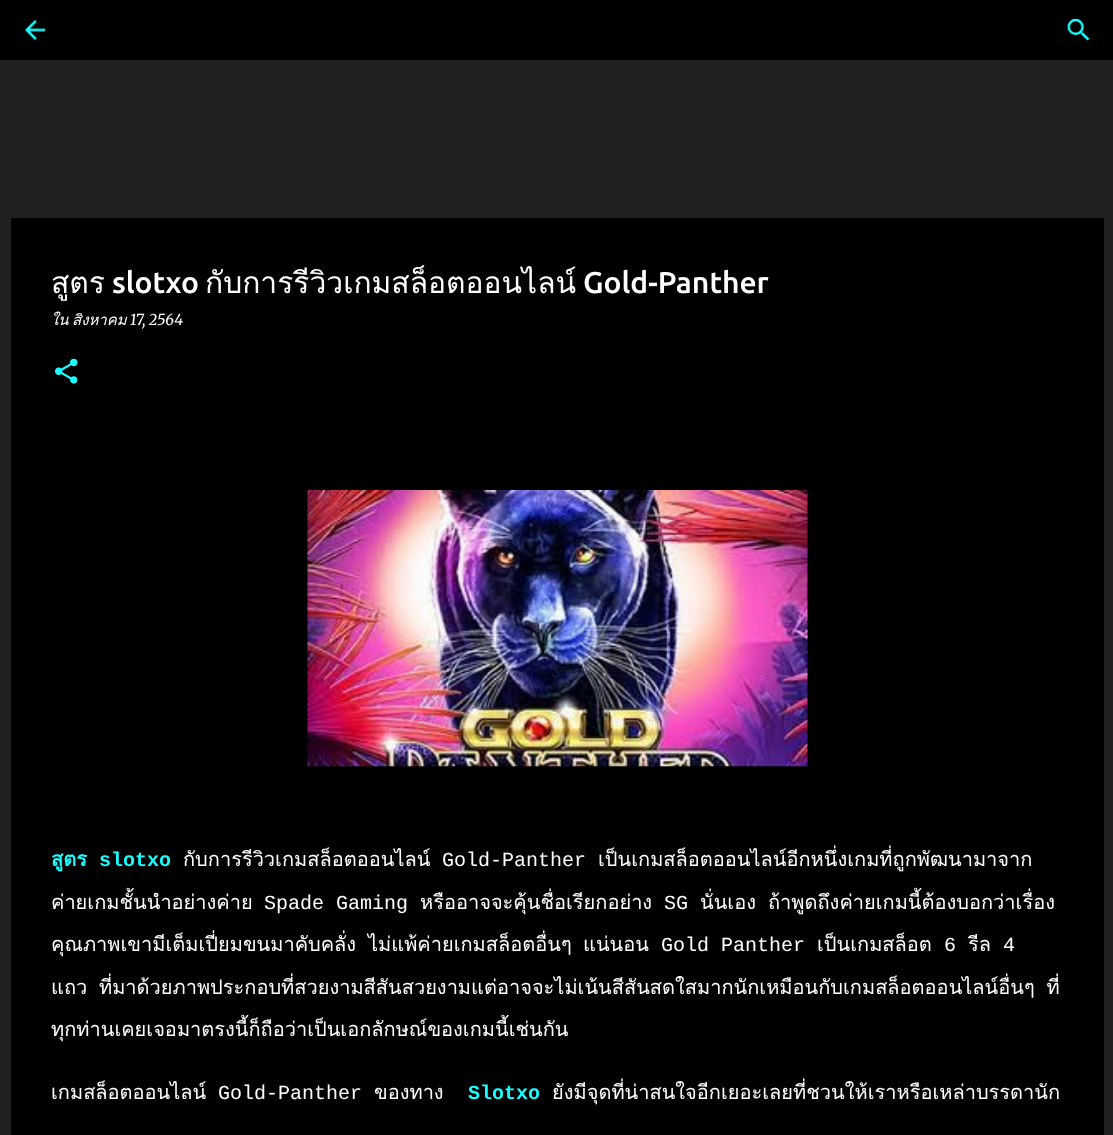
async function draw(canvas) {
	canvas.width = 1113;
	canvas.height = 1135;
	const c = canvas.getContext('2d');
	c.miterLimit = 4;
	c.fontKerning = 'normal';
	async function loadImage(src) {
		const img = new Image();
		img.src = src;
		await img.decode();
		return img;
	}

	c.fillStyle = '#212121';
	c.fillRect(0, 0, 1113, 1135);
	c.fillStyle = '#000';
	c.fillRect(0, 0, 1113, 60);
	c.drawImage(await loadImage('img1.png'), 25, 19, 20, 22);
	c.drawImage(await loadImage('img2.png'), 1066, 18, 24, 23);
	c.fillRect(11, 218, 1093, 917);
	c.font = '30px Loma';
	c.fillStyle = '#fff';
	c.fillText('สูตร', 51, 293);
	c.font = '500 30px Ubuntu';
	c.fillText('slotxo', 112, 293);
	c.font = '30px Loma';
	c.fillText('กับการรีวิวเกมสล็อตออนไลน์', 205, 293);
	c.font = '500 30px Ubuntu';
	c.fillText('Gold-Panther', 583, 293);
	c.font = 'italic 15px Loma';
	c.fillText('ใน', 51, 325);
	c.fillText('สิงหาคม', 72, 325);
	c.font = 'italic 15px Merriweather';
	c.fillText('17, 2564', 130, 325);
	c.drawImage(await loadImage('img3.png'), 55, 358, 23, 26);
	c.drawImage(await loadImage('img4.png'), 307, 490, 501, 277);
	c.font = 'bold 20px Loma';
	c.fillStyle = '#18ffff';
	c.fillText('สูตร', 51, 866);
	c.font = 'bold 20px Liberation Mono';
	c.fillText('slotxo', 99, 866);
	c.font = '20px Loma';
	c.fillStyle = '#fff';
	c.fillText('กับการรีวิวเกมสล็อตออนไลน์', 183, 866);
	c.font = '20px Liberation Mono';
	c.fillText('Gold-Panther', 442, 866);
	c.font = '20px Loma';
	c.fillText('เป็นเกมสล็อตออนไลน์อีกหนึ่งเกมที่ถูกพัฒนามาจาก', 598, 866);
	c.fillText('ค่ายเกมชั้นนำอย่างค่าย', 51, 909);
	c.font = '20px Liberation Mono';
	c.fillText('Spade Gaming', 264, 909);
	c.font = '20px Loma';
	c.fillText('หรืออาจจะคุ้นชื่อเรียกอย่าง', 420, 909);
	c.font = '20px Liberation Mono';
	c.fillText('SG', 664, 909);
	c.font = '20px Loma';
	for (const [text, x, y] of [
		['นั่นเอง', 700, 909],
		['ถ้าพูดถึงค่ายเกมนี้ต้องบอกว่าเรื่อง', 768, 909],
		['คุณภาพเขามีเต็มเปี่ยมขนมาคับคลั่ง', 51, 951],
		['ไม่แพ้ค่ายเกมสล็อตอื่นๆ', 368, 951],
		['แน่นอน', 583, 951],
	]) {
		c.fillText(text, x, y);
	}
	c.font = '20px Liberation Mono';
	c.fillText('Gold Panther', 661, 951);
	c.font = '20px Loma';
	c.fillText('เป็นเกมสล็อต', 817, 951);
	c.font = '20px Liberation Mono';
	c.fillText('6', 944, 951);
	c.font = '20px Loma';
	c.fillText('รีล', 968, 951);
	c.font = '20px Liberation Mono';
	c.fillText('4', 1003, 951);
	c.wordSpacing = '5px';
	c.font = '20px Loma';
	c.fillText('แถว ที่มาด้วยภาพประกอบที่สวยงามสีสันสวยงามแต่อาจจะไม่เน้นสีสันสดใสมากนักเหมือนกับเกมสล็อตออนไลน์อื่นๆ ที่', 51, 994);
	c.wordSpacing = '0px';
	c.fillText('ทุกท่านเคยเจอมาตรงนี้ก็ถือว่าเป็นเอกลักษณ์ของเกมนี้เช่นกัน', 51, 1036);
	c.fillText('เกมสล็อตออนไลน์', 51, 1099);
	c.font = '20px Liberation Mono';
	c.fillText('Gold-Panther', 218, 1099);
	c.font = '20px Loma';
	c.fillText('ของทาง', 374, 1099);
	c.font = 'bold 20px Liberation Mono';
	c.fillStyle = '#18ffff';
	c.fillText('Slotxo', 468, 1099);
	c.font = '20px Loma';
	c.fillStyle = '#fff';
	c.fillText('ยังมีจุดที่น่าสนใจอีกเยอะเลยที่ชวนให้เราหรือเหล่าบรรดานัก', 552, 1099);
}

draw(document.querySelector('canvas'));
